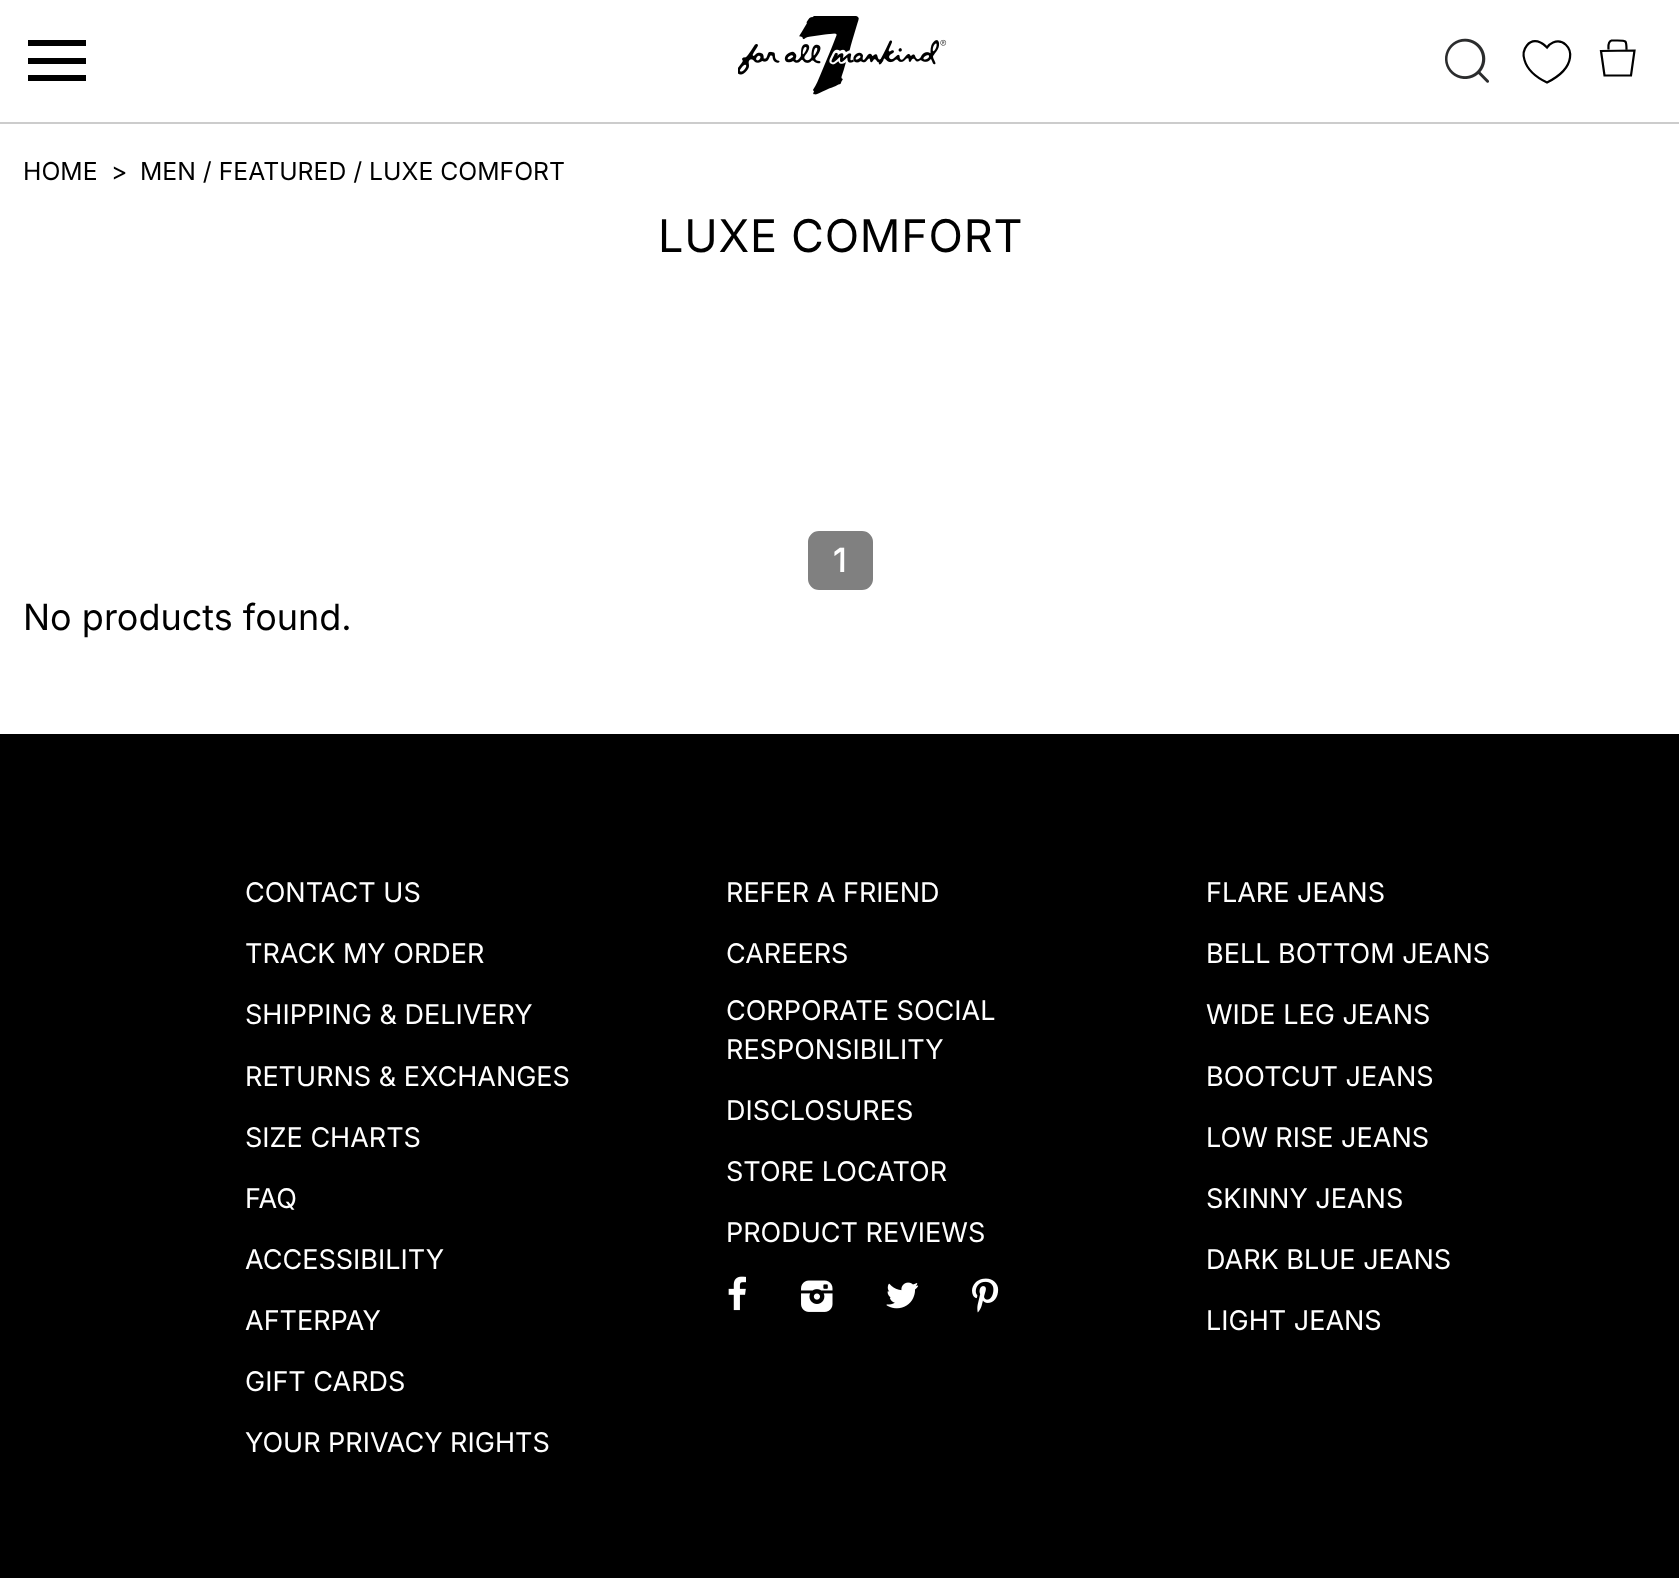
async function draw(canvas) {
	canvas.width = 1679;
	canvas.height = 1578;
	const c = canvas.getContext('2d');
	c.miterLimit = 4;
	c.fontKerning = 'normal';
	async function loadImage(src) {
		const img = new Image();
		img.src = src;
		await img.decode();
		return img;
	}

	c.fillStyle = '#fff';
	c.fillRect(0, 0, 1679, 1578);
	c.fillStyle = '#ccc';
	c.fillRect(0, 122, 1679, 2);
	c.fillStyle = '#000';
	c.beginPath();
	c.moveTo(28, 58);
	c.lineTo(86, 58);
	c.lineTo(86, 64);
	c.lineTo(28, 64);
	c.closePath();
	c.moveTo(28, 40);
	c.lineTo(86, 40);
	c.lineTo(86, 46);
	c.lineTo(28, 46);
	c.closePath();
	c.moveTo(28, 75);
	c.lineTo(86, 75);
	c.lineTo(86, 81);
	c.lineTo(28, 81);
	c.closePath();
	c.fill();
	c.drawImage(await loadImage('img1.png'), 738, 16, 209, 79);
	c.drawImage(await loadImage('img2.png'), 1445, 38, 44, 45);
	c.beginPath();
	c.moveTo(1547, 82.5);
	c.bezierCurveTo(1537.5, 78, 1527.5, 70.5, 1524.5, 60);
	c.bezierCurveTo(1521, 49.5, 1529, 37.5, 1540.5, 42.5);
	c.bezierCurveTo(1543, 43.5, 1545, 45.5, 1547, 47.5);
	c.bezierCurveTo(1548.5, 45.5, 1550.5, 43.5, 1553, 42.5);
	c.bezierCurveTo(1563, 38.5, 1571.5, 47.5, 1570, 57.5);
	c.bezierCurveTo(1568.5, 69, 1557, 77.5, 1547, 82.5);
	c.closePath();
	c.strokeStyle = '#000';
	c.lineWidth = 2.2;
	c.stroke();
	c.beginPath();
	c.moveTo(1634.5, 50.5);
	c.lineTo(1631, 75.5);
	c.lineTo(1604.5, 75.5);
	c.lineTo(1601, 51);
	c.closePath();
	c.moveTo(1608.5, 49.5);
	c.bezierCurveTo(1608.5, 46.5, 1607.5, 41.5, 1611.5, 40.5);
	c.lineTo(1617.5, 40.5);
	c.bezierCurveTo(1626.5, 40.5, 1626.5, 40.5, 1626.5, 49.5);
	c.stroke();
	c.font = '24.75px Inter';
	for (const [text, x, y] of [
		['HOME', 23, 180],
		['>', 111, 180],
		['MEN / FEATURED / LUXE COMFORT', 140, 180],
	]) {
		c.fillText(text, x, y);
	}
	c.letterSpacing = '0.75px';
	c.font = '45px Inter';
	c.fillText('LUXE COMFORT', 658, 252);
	c.fillStyle = '#808080';
	c.beginPath();
	c.roundRect(809, 532, 63, 57, 10);
	c.fill();
	c.strokeStyle = '#808080';
	c.lineWidth = 2;
	c.stroke();
	c.letterSpacing = '2px';
	c.font = 'bold 32px Inter';
	c.fillStyle = '#fff';
	c.fillText('1', 833, 572);
	c.letterSpacing = '0px';
	c.font = '36px Inter';
	c.fillStyle = '#000';
	c.fillText('No products found.', 23, 630);
	c.fillRect(0, 734, 1679, 844);
	c.font = '27px Inter';
	c.fillStyle = '#fff';
	for (const [text, x, y] of [
		['CONTACT US', 245, 902],
		['TRACK MY ORDER', 245, 963],
		['SHIPPING & DELIVERY', 245, 1024],
		['RETURNS & EXCHANGES', 245, 1086],
		['SIZE CHARTS', 245, 1147],
		['FAQ', 245, 1208],
		['ACCESSIBILITY', 245, 1269],
		['AFTERPAY', 245, 1330],
		['GIFT CARDS', 245, 1391],
		['YOUR PRIVACY RIGHTS', 245, 1452],
		['REFER A FRIEND', 726, 902],
		['CAREERS', 726, 963],
		['CORPORATE SOCIAL', 726, 1020],
		['RESPONSIBILITY', 726, 1059],
		['DISCLOSURES', 726, 1120],
		['STORE LOCATOR', 726, 1181],
		['PRODUCT REVIEWS', 726, 1242],
	]) {
		c.fillText(text, x, y);
	}
	c.drawImage(await loadImage('img3.png'), 728, 1276, 18, 35);
	c.drawImage(await loadImage('img4.png'), 801, 1280, 32, 32);
	c.drawImage(await loadImage('img5.png'), 886, 1282, 33, 27);
	c.drawImage(await loadImage('img6.png'), 972, 1278, 27, 35);
	for (const [text, x, y] of [
		['FLARE JEANS', 1206, 902],
		['BELL BOTTOM JEANS', 1206, 963],
		['WIDE LEG JEANS', 1206, 1024],
		['BOOTCUT JEANS', 1206, 1086],
		['LOW RISE JEANS', 1206, 1147],
		['SKINNY JEANS', 1206, 1208],
		['DARK BLUE JEANS', 1206, 1269],
		['LIGHT JEANS', 1206, 1330],
	]) {
		c.fillText(text, x, y);
	}
}

draw(document.querySelector('canvas'));
